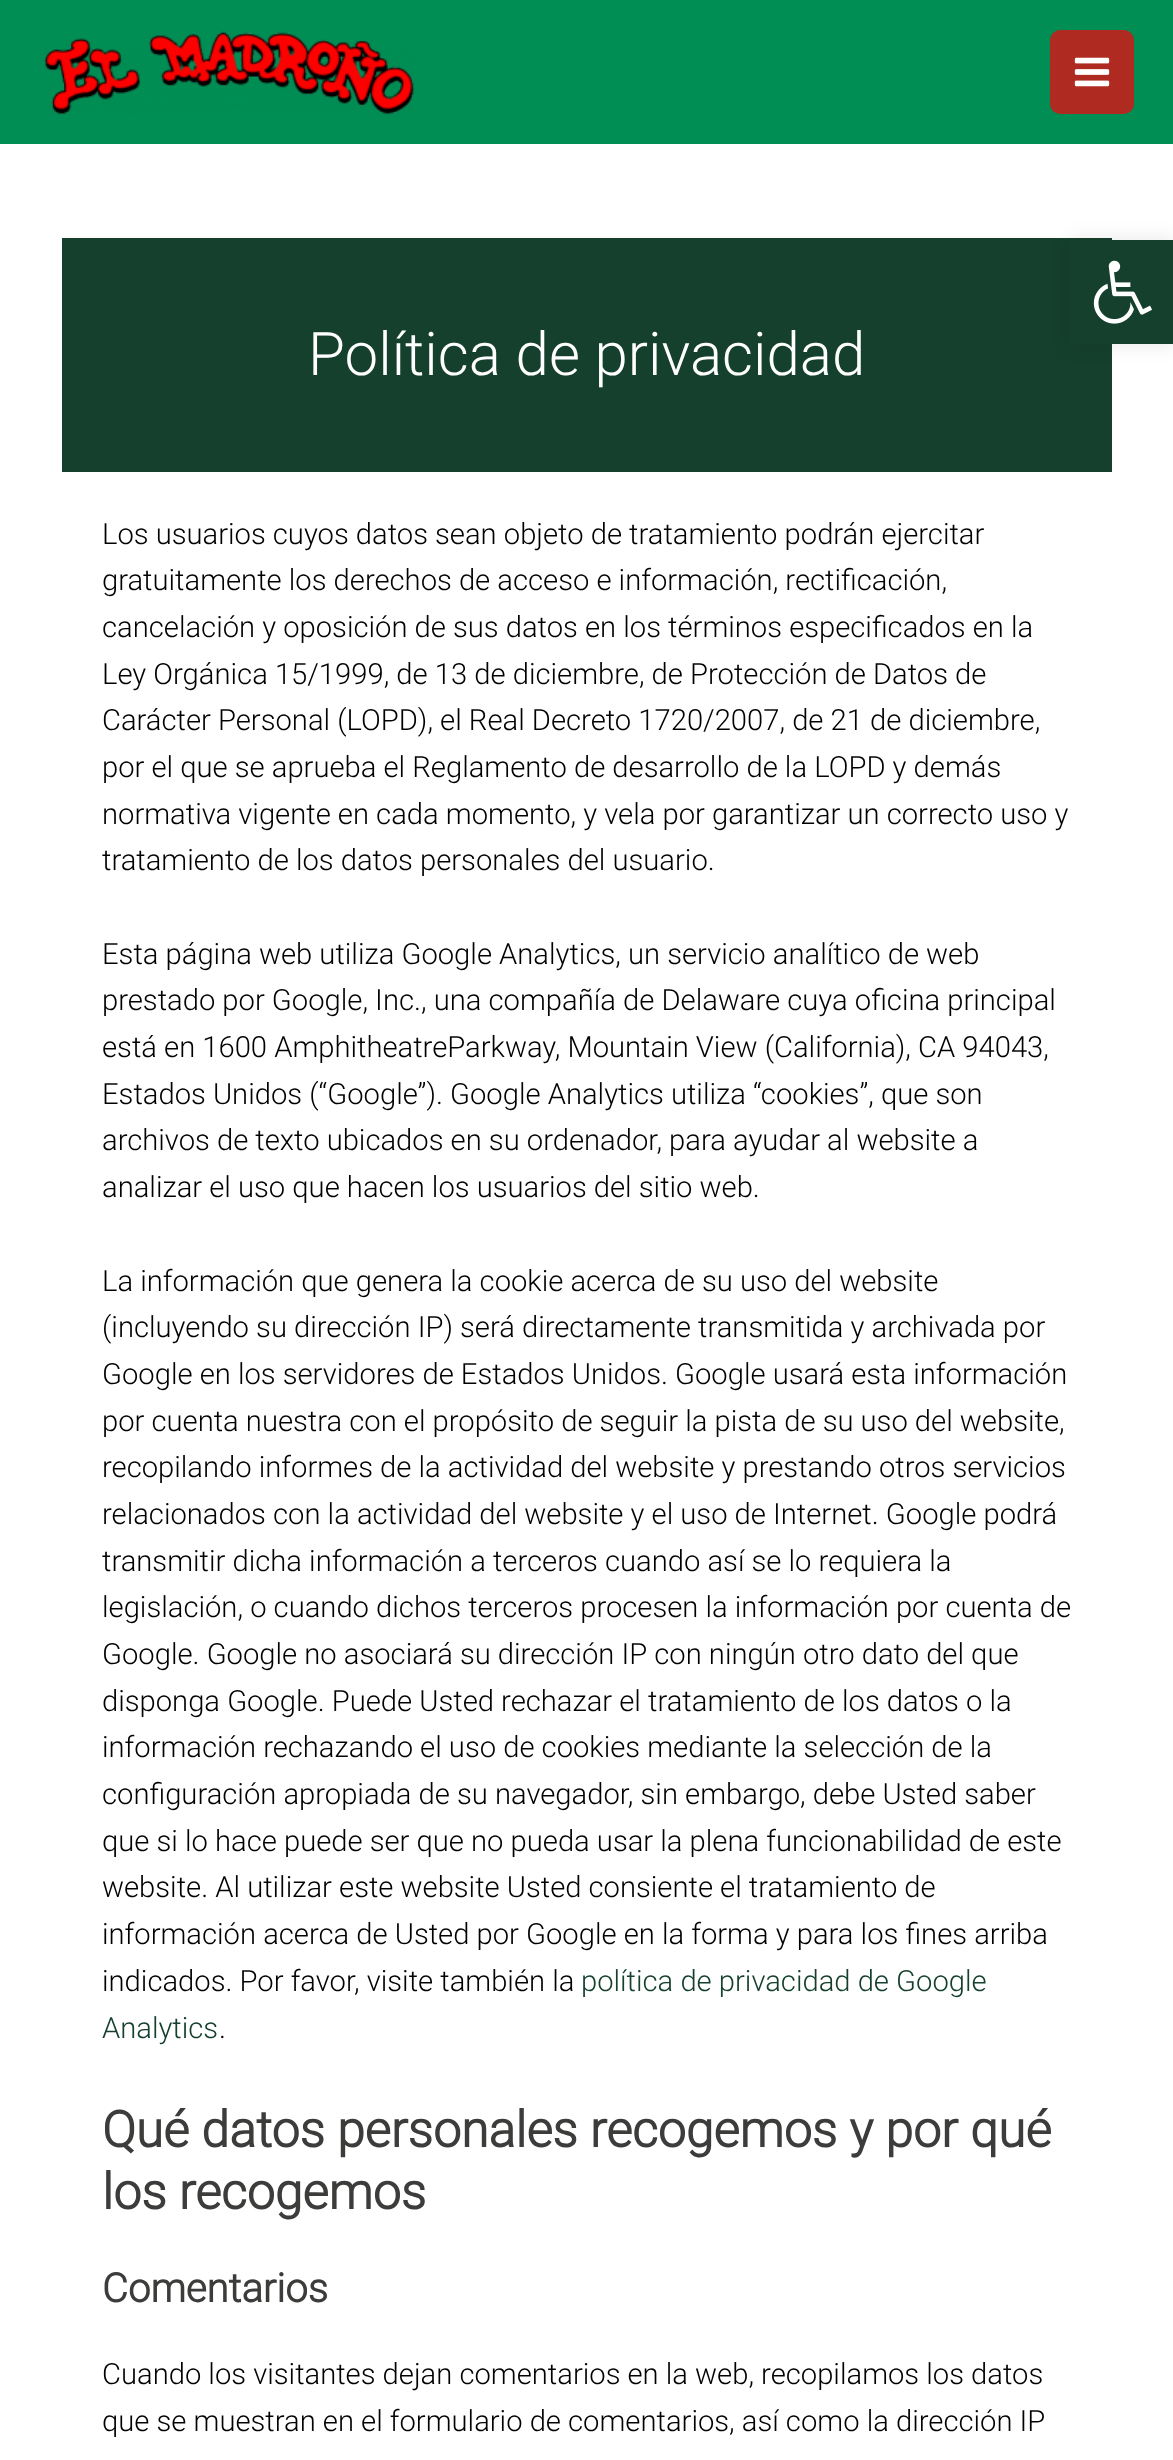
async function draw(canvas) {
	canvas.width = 1173;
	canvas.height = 2460;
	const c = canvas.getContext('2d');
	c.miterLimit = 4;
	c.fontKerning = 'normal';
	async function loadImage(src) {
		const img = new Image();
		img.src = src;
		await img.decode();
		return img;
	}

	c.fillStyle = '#fff';
	c.fillRect(0, 0, 1173, 2460);
	c.fillStyle = '#15402d';
	c.fillRect(62, 238, 1050, 234);
	c.fillStyle = '#0000001a';
	c.filter = 'blur(10px)';
	c.beginPath();
	c.rect(1070, 240, 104, 104);
	c.fill();
	c.filter = 'none';
	c.fillStyle = '#15402d';
	c.fillRect(1070, 240, 103, 104);
	c.drawImage(await loadImage('img1.png'), 1093, 260, 59, 64);
	c.fillStyle = '#008e54';
	c.fillRect(0, 0, 1173, 144);
	c.drawImage(await loadImage('img2.png'), 44, 31, 371, 84);
	c.fillStyle = '#af2b21';
	c.beginPath();
	c.roundRect(1050, 30, 84, 84, 10);
	c.fill();
	c.drawImage(await loadImage('img3.png'), 1074, 57, 36, 30);
	c.font = '300 60px Roboto';
	c.fillStyle = '#fff';
	c.fillText('Política de privacidad', 308, 375);
	c.font = '300 29.2px Roboto';
	c.fillStyle = '#000';
	for (const [text, x, y] of [
		['Los usuarios cuyos datos sean objeto de tratamiento podrán ejercitar', 102, 544],
		['gratuitamente los derechos de acceso e información, rectificación,', 102, 590],
		['cancelación y oposición de sus datos en los términos especificados en la', 102, 637],
		['Ley Orgánica 15/1999, de 13 de diciembre, de Protección de Datos de', 102, 684],
		['Carácter Personal (LOPD), el Real Decreto 1720/2007, de 21 de diciembre,', 102, 730],
		['por el que se aprueba el Reglamento de desarrollo de la LOPD y demás', 102, 777],
		['normativa vigente en cada momento, y vela por garantizar un correcto uso y', 102, 824],
		['tratamiento de los datos personales del usuario.', 102, 870],
		['Esta página web utiliza Google Analytics, un servicio analítico de web', 102, 964],
		['prestado por Google, Inc., una compañía de Delaware cuya oficina principal', 102, 1010],
		['está en 1600 AmphitheatreParkway, Mountain View (California), CA 94043,', 102, 1057],
		['Estados Unidos (“Google”). Google Analytics utiliza “cookies”, que son', 102, 1104],
		['archivos de texto ubicados en su ordenador, para ayudar al website a', 102, 1150],
		['analizar el uso que hacen los usuarios del sitio web.', 102, 1197],
		['La información que genera la cookie acerca de su uso del website', 102, 1291],
		['(incluyendo su dirección IP) será directamente transmitida y archivada por', 102, 1337],
		['Google en los servidores de Estados Unidos. Google usará esta información', 102, 1384],
		['por cuenta nuestra con el propósito de seguir la pista de su uso del website,', 102, 1431],
		['recopilando informes de la actividad del website y prestando otros servicios', 102, 1477],
		['relacionados con la actividad del website y el uso de Internet. Google podrá', 102, 1524],
		['transmitir dicha información a terceros cuando así se lo requiera la', 102, 1571],
		['legislación, o cuando dichos terceros procesen la información por cuenta de', 102, 1617],
		['Google. Google no asociará su dirección IP con ningún otro dato del que', 102, 1664],
		['disponga Google. Puede Usted rechazar el tratamiento de los datos o la', 102, 1711],
		['información rechazando el uso de cookies mediante la selección de la', 102, 1757],
		['configuración apropiada de su navegador, sin embargo, debe Usted saber', 102, 1804],
		['que si lo hace puede ser que no pueda usar la plena funcionabilidad de este', 102, 1851],
		['website. Al utilizar este website Usted consiente el tratamiento de', 102, 1897],
		['información acerca de Usted por Google en la forma y para los fines arriba', 102, 1944],
		['indicados. Por favor, visite también la', 102, 1991],
	]) {
		c.fillText(text, x, y);
	}
	c.fillStyle = '#15402d';
	c.fillText('política de privacidad de Google', 581, 1991);
	c.fillText('Analytics', 102, 2038);
	c.fillStyle = '#000';
	c.fillText('.', 219, 2038);
	c.font = 'bold 50px Roboto';
	c.fillStyle = '#3c3c3b';
	c.fillText('Qué datos personales recogemos y por qué', 102, 2147);
	c.fillText('los recogemos', 102, 2209);
	c.font = 'bold 40px Roboto';
	c.fillText('Comentarios', 102, 2302);
	c.font = '300 29.2px Roboto';
	c.fillStyle = '#000';
	c.fillText('Cuando los visitantes dejan comentarios en la web, recopilamos los datos', 102, 2384);
	c.fillText('que se muestran en el formulario de comentarios, así como la dirección IP', 102, 2431);
}

draw(document.querySelector('canvas'));
